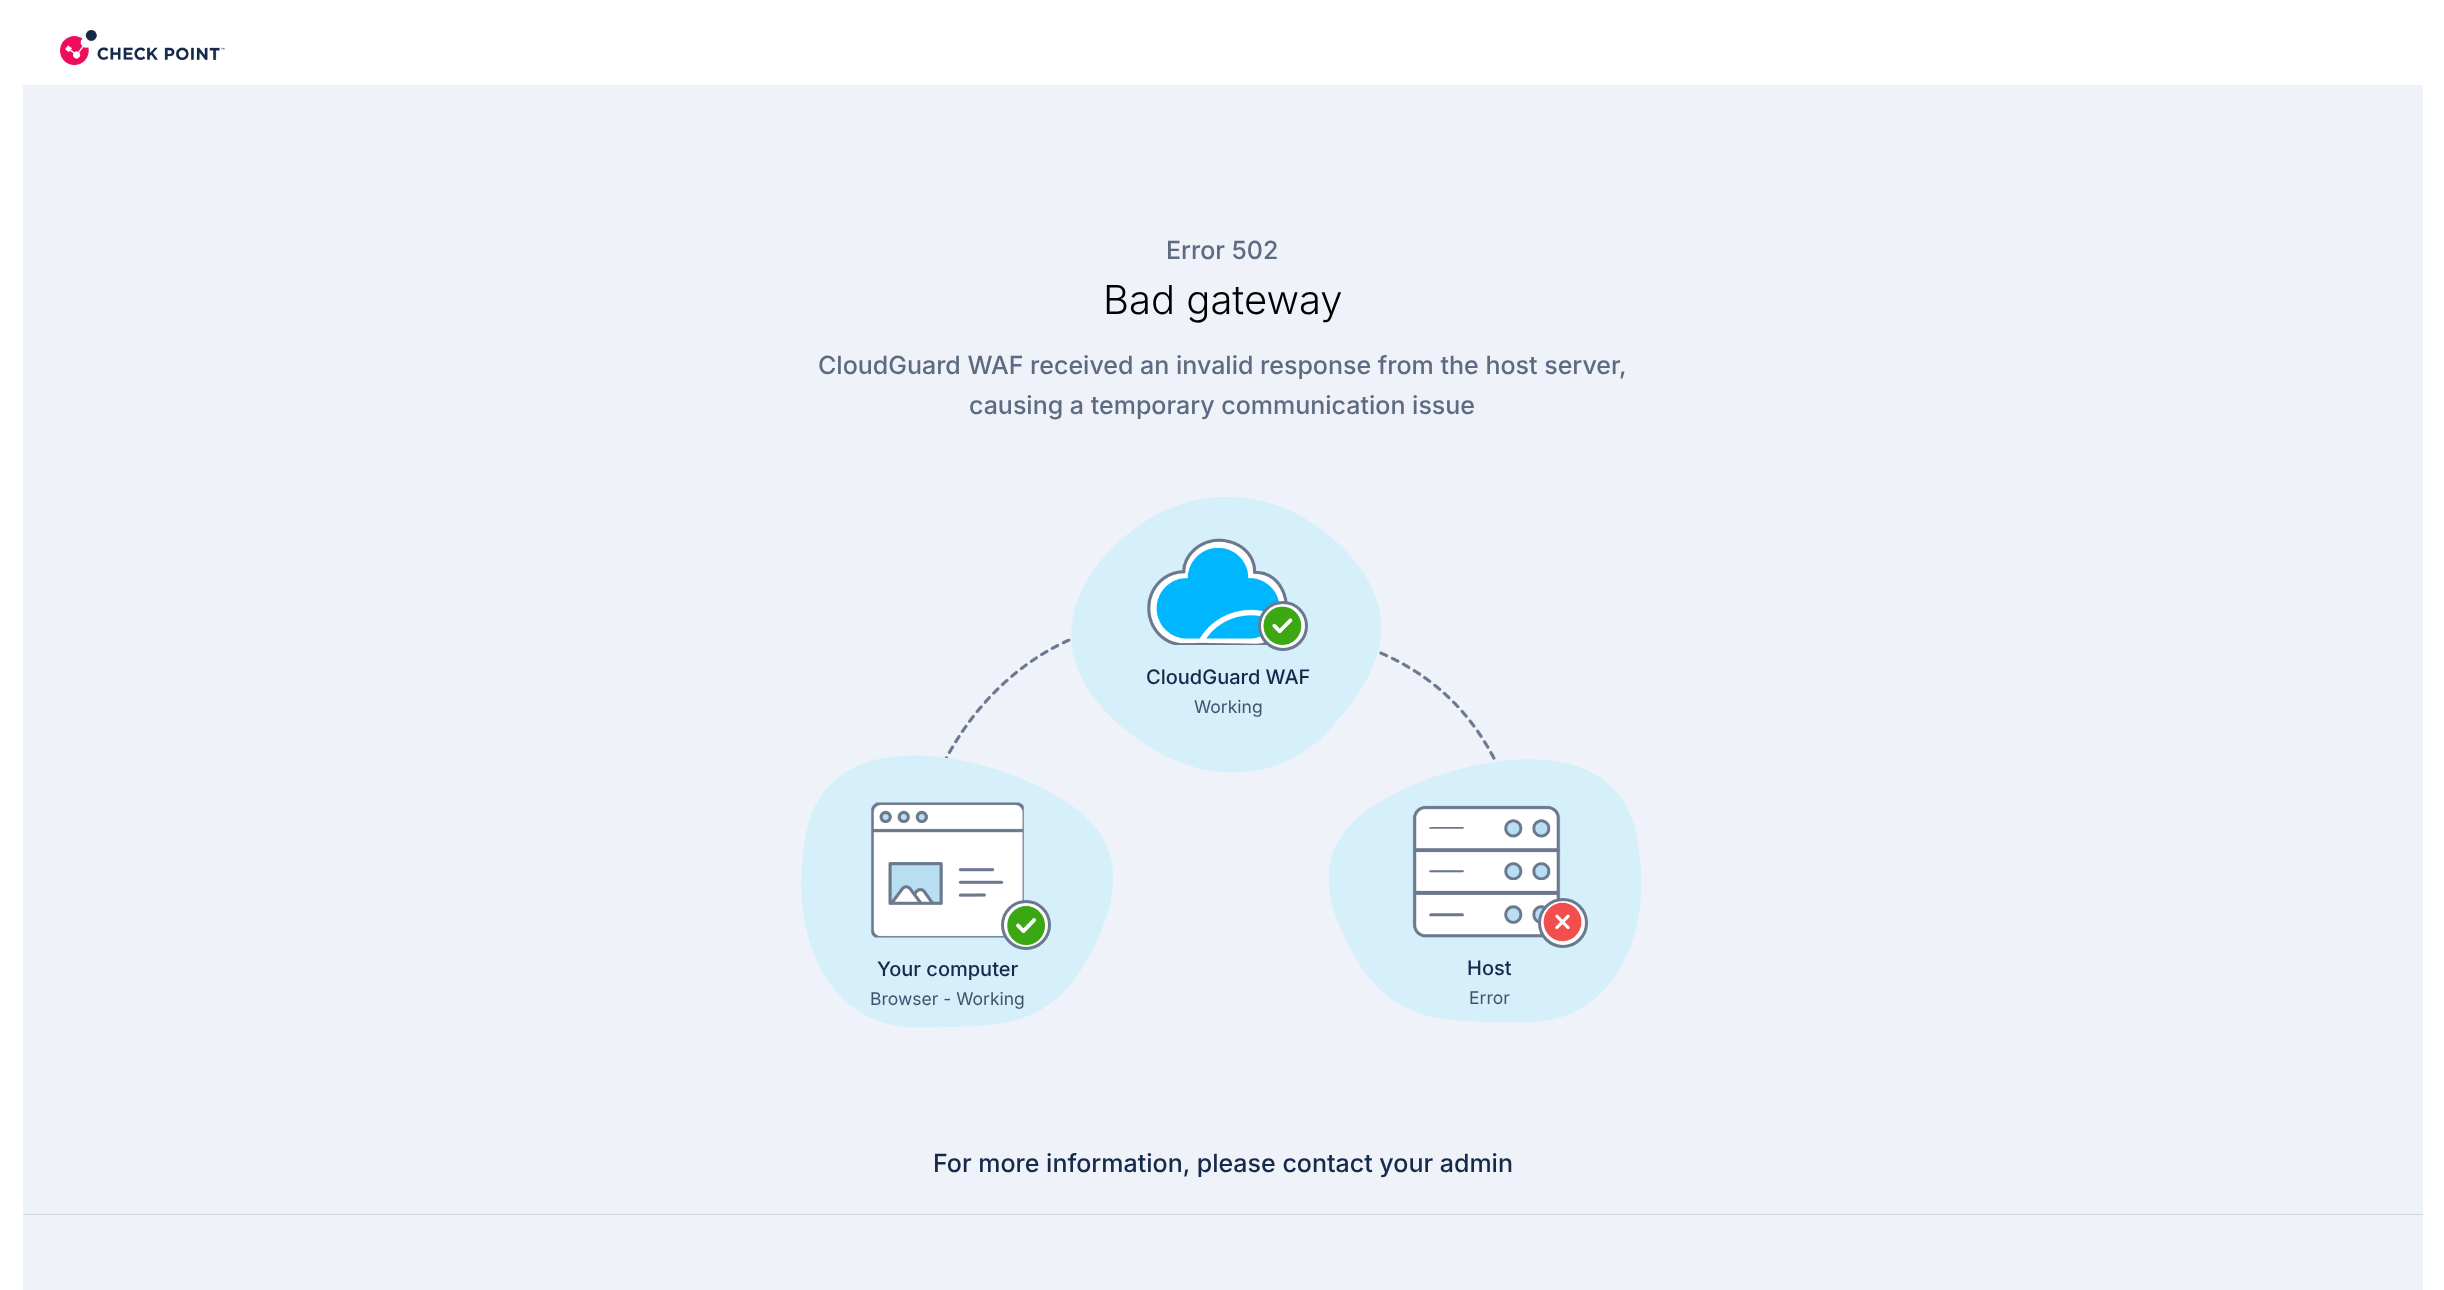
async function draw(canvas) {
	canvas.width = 2444;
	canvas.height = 1290;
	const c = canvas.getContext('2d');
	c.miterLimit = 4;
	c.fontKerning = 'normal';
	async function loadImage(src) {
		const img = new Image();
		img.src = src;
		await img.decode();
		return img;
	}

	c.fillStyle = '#fff';
	c.fillRect(0, 0, 2444, 1290);
	c.fillStyle = '#eff2f8';
	c.fillRect(23, 85, 2400, 1205);
	c.drawImage(await loadImage('img1.png'), 60, 30, 165, 35);
	c.font = '500 25px Inter';
	c.fillStyle = '#5d6b82';
	c.fillText('Error 502', 1166, 259);
	c.font = '300 40px Inter';
	c.fillStyle = '#000';
	c.fillText('Bad gateway', 1103, 314);
	c.font = '500 25px Inter';
	c.fillStyle = '#5d6b82';
	c.fillText('CloudGuard WAF received an invalid response from the host server,', 818, 374);
	c.fillText('causing a temporary communication issue', 969, 414);
	c.drawImage(await loadImage('img2.png'), 944, 638, 552, 122);
	c.drawImage(await loadImage('img3.png'), 1071, 497, 311, 276);
	c.drawImage(await loadImage('img4.png'), 1147, 538, 141, 107);
	c.fillStyle = '#fff';
	c.beginPath();
	c.arc(1283, 626, 23.5, 0, 2 * Math.PI);
	c.fill();
	c.strokeStyle = '#6b788e';
	c.lineWidth = 3;
	c.stroke();
	c.drawImage(await loadImage('img5.png'), 1263, 606, 39, 39);
	c.font = '500 20px Inter';
	c.fillStyle = '#15294b';
	c.fillText('CloudGuard WAF', 1146, 684);
	c.font = '17.5px Inter';
	c.fillStyle = '#42526d';
	c.fillText('Working', 1194, 713);
	c.drawImage(await loadImage('img6.png'), 801, 755, 312, 273);
	c.drawImage(await loadImage('img7.png'), 871, 802, 153, 136);
	c.fillStyle = '#fff';
	c.beginPath();
	c.arc(1026, 925, 23.5, 0, 2 * Math.PI);
	c.fill();
	c.stroke();
	c.drawImage(await loadImage('img8.png'), 1007, 905, 38, 40);
	c.font = '500 20px Inter';
	c.fillStyle = '#15294b';
	c.fillText('Your computer', 877, 976);
	c.font = '17.5px Inter';
	c.fillStyle = '#42526d';
	c.fillText('Browser - Working', 870, 1005);
	c.drawImage(await loadImage('img9.png'), 1328, 759, 314, 264);
	c.drawImage(await loadImage('img11.png'), 1415, 808, 142, 127);
	c.drawImage(await loadImage('img12.png'), 1429, 827, 35, 2);
	c.drawImage(await loadImage('img13.png'), 1503, 819, 20, 19);
	c.drawImage(await loadImage('img14.png'), 1532, 819, 19, 19);
	c.drawImage(await loadImage('img16.png'), 1428, 870, 36, 3);
	c.drawImage(await loadImage('img17.png'), 1503, 862, 20, 18);
	c.drawImage(await loadImage('img18.png'), 1532, 862, 19, 18);
	c.drawImage(await loadImage('img21.png'), 1428, 913, 36, 4);
	c.drawImage(await loadImage('img22.png'), 1503, 905, 20, 19);
	c.drawImage(await loadImage('img23.png'), 1532, 905, 13, 19);
	c.drawImage(await loadImage('img19.png'), 1412, 892, 149, 46);
	c.drawImage(await loadImage('img15.png'), 1412, 848, 149, 46);
	c.drawImage(await loadImage('img10.png'), 1412, 805, 149, 46);
	c.fillStyle = '#fff';
	c.beginPath();
	c.arc(1563, 923, 23.5, 0, 2 * Math.PI);
	c.fill();
	c.stroke();
	c.drawImage(await loadImage('img20.png'), 1543, 902, 39, 40);
	c.font = '500 20px Inter';
	c.fillStyle = '#15294b';
	c.fillText('Host', 1467, 975);
	c.font = '17.5px Inter';
	c.fillStyle = '#42526d';
	c.fillText('Error', 1469, 1004);
	c.fillStyle = '#d2d8e3';
	c.fillRect(23, 1214, 2400, 1);
	c.font = '500 25px Inter';
	c.fillStyle = '#15294b';
	c.fillText('For more information, please contact your admin', 933, 1172);
}

draw(document.querySelector('canvas'));
